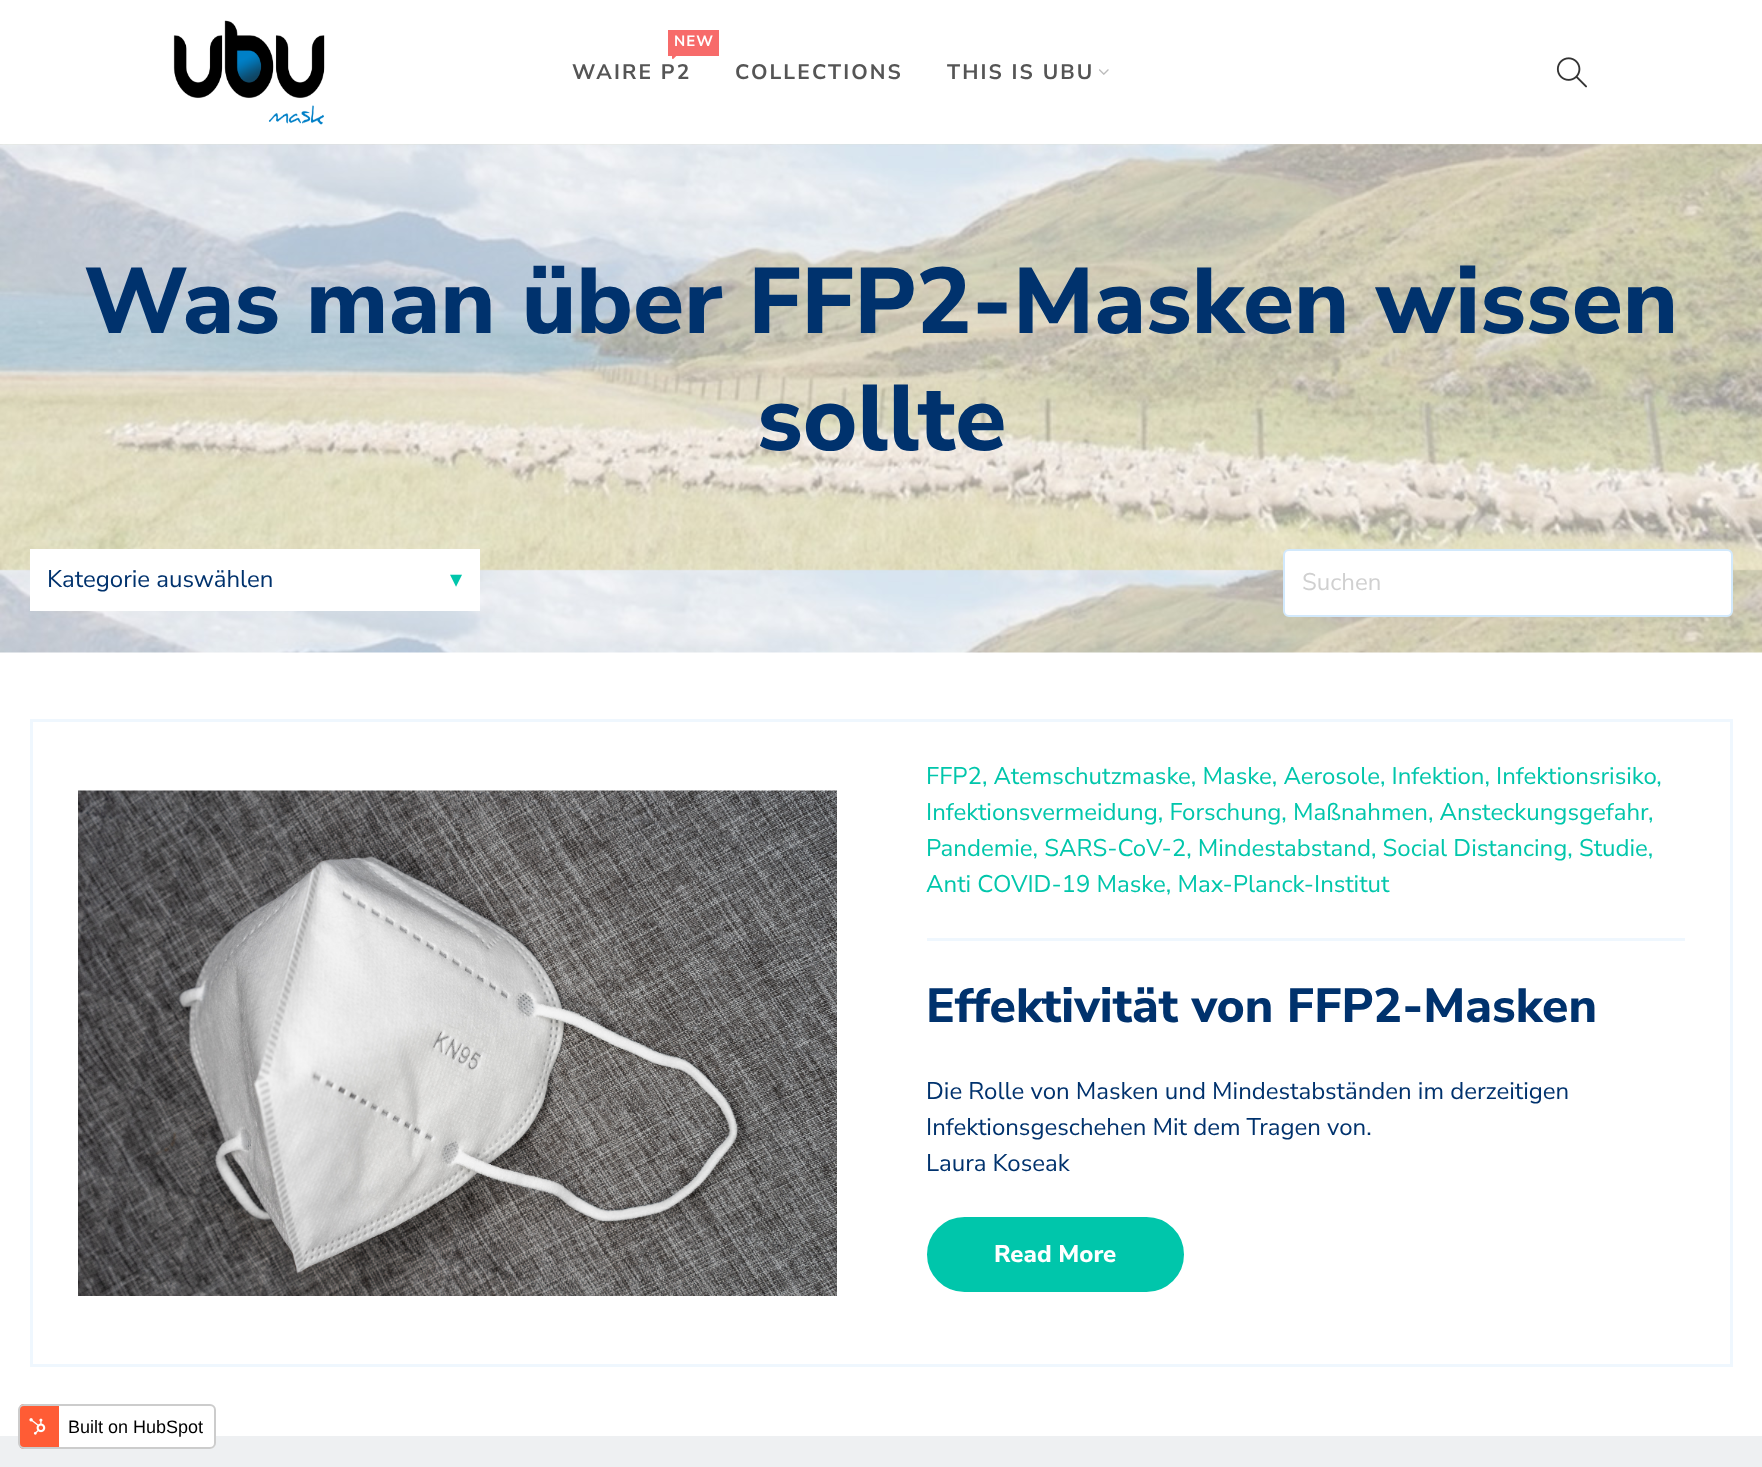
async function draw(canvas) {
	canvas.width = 1762;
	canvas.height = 1467;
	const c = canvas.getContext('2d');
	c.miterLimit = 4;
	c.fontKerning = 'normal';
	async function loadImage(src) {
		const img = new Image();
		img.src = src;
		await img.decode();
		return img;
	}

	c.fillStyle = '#fff';
	c.fillRect(0, 0, 1762, 1467);
	c.drawImage(await loadImage('img1.png'), 173, 20, 152, 105);
	c.fillStyle = '#f76b6a';
	c.fillRect(668, 30, 51, 26);
	c.letterSpacing = '1px';
	c.font = 'bold 15px Nunito Sans';
	c.fillStyle = '#fff';
	c.fillText('NEW', 674, 46);
	c.drawImage(await loadImage('img2.png'), 672, 56, 5, 3);
	c.letterSpacing = '2.1px';
	c.font = 'bold 21px Nunito Sans';
	c.fillStyle = '#555';
	for (const [text, x, y] of [
		['WAIRE P2', 572, 79],
		['COLLECTIONS', 735, 79],
		['THIS IS UBU', 947, 79],
	]) {
		c.fillText(text, x, y);
	}
	c.drawImage(await loadImage('img3.png'), 1099, 69, 10, 6);
	c.drawImage(await loadImage('img4.png'), 1556, 57, 31, 31);
	c.drawImage(await loadImage('img5.png'), 0, 144, 1762, 509);
	c.letterSpacing = '0px';
	c.font = '800 93px Nunito Sans';
	c.fillStyle = '#00326d';
	c.fillText('Was man über FFP2-Masken wissen', 84, 333);
	c.fillText('sollte', 757, 450);
	c.fillStyle = '#fff';
	c.fillRect(30, 549, 450, 62);
	c.font = '24px Nunito Sans';
	c.fillStyle = '#00326d';
	c.fillText('Kategorie auswählen', 47, 587);
	c.font = '24px DejaVu Sans';
	c.fillStyle = '#00c6ab';
	c.fillText('▾', 450, 587);
	c.fillStyle = '#fff';
	c.beginPath();
	c.roundRect(1284, 550, 448, 66, 5);
	c.fill();
	c.strokeStyle = '#d2e9fc';
	c.lineWidth = 2;
	c.stroke();
	c.font = '24px Nunito Sans';
	c.fillStyle = '#d0d0d0';
	c.fillText('Suchen', 1302, 590);
	c.strokeStyle = '#eff7fe';
	c.lineWidth = 3;
	c.strokeRect(31.5, 720.5, 1700, 645);
	c.drawImage(await loadImage('img6.png'), 78, 790, 759, 506);
	c.fillStyle = '#eff7fe';
	c.fillRect(927, 938, 758, 3);
	c.fillStyle = '#00c6ab';
	for (const [text, x, y] of [
		['FFP2, Atemschutzmaske, Maske, Aerosole, Infektion, Infektionsrisiko,', 926, 784],
		['Infektionsvermeidung, Forschung, Maßnahmen, Ansteckungsgefahr,', 926, 820],
		['Pandemie, SARS-CoV-2, Mindestabstand, Social Distancing, Studie,', 926, 856],
		['Anti COVID-19 Maske, Max-Planck-Institut', 926, 892],
	]) {
		c.fillText(text, x, y);
	}
	c.font = '800 48px Nunito Sans';
	c.fillStyle = '#00326d';
	c.fillText('Effektivität von FFP2-Masken', 926, 1022);
	c.font = '24px Nunito Sans';
	for (const [text, x, y] of [
		['Die Rolle von Masken und Mindestabständen im derzeitigen', 926, 1099],
		['Infektionsgeschehen Mit dem Tragen von.', 926, 1135],
		['Laura Koseak', 926, 1171],
	]) {
		c.fillText(text, x, y);
	}
	c.fillStyle = '#00c6ab';
	c.beginPath();
	c.roundRect(928, 1218, 255, 73, 36.5);
	c.fill();
	c.strokeStyle = '#00c6ab';
	c.lineWidth = 2;
	c.stroke();
	c.font = '800 24px Nunito Sans';
	c.fillStyle = '#fff';
	c.fillText('Read More', 994, 1262);
	c.fillStyle = '#eef0f2';
	c.fillRect(0, 1436, 1762, 31);
	c.save();
	c.beginPath();
	c.roundRect(18, 1404, 198, 45, 6);
	c.clip();
	c.fillStyle = '#ff5c35';
	c.fillRect(20, 1404, 39, 45);
	c.fillStyle = '#fff';
	c.fillRect(59, 1404, 156, 45);
	c.restore();
	c.beginPath();
	c.roundRect(19, 1405, 196, 43, 5);
	c.strokeStyle = '#ccc';
	c.stroke();
	c.drawImage(await loadImage('img7.png'), 29, 1418, 17, 17);
	c.font = '18px Liberation Sans';
	c.fillStyle = '#000';
	c.fillText('Built on HubSpot', 68, 1433);
}

draw(document.querySelector('canvas'));
